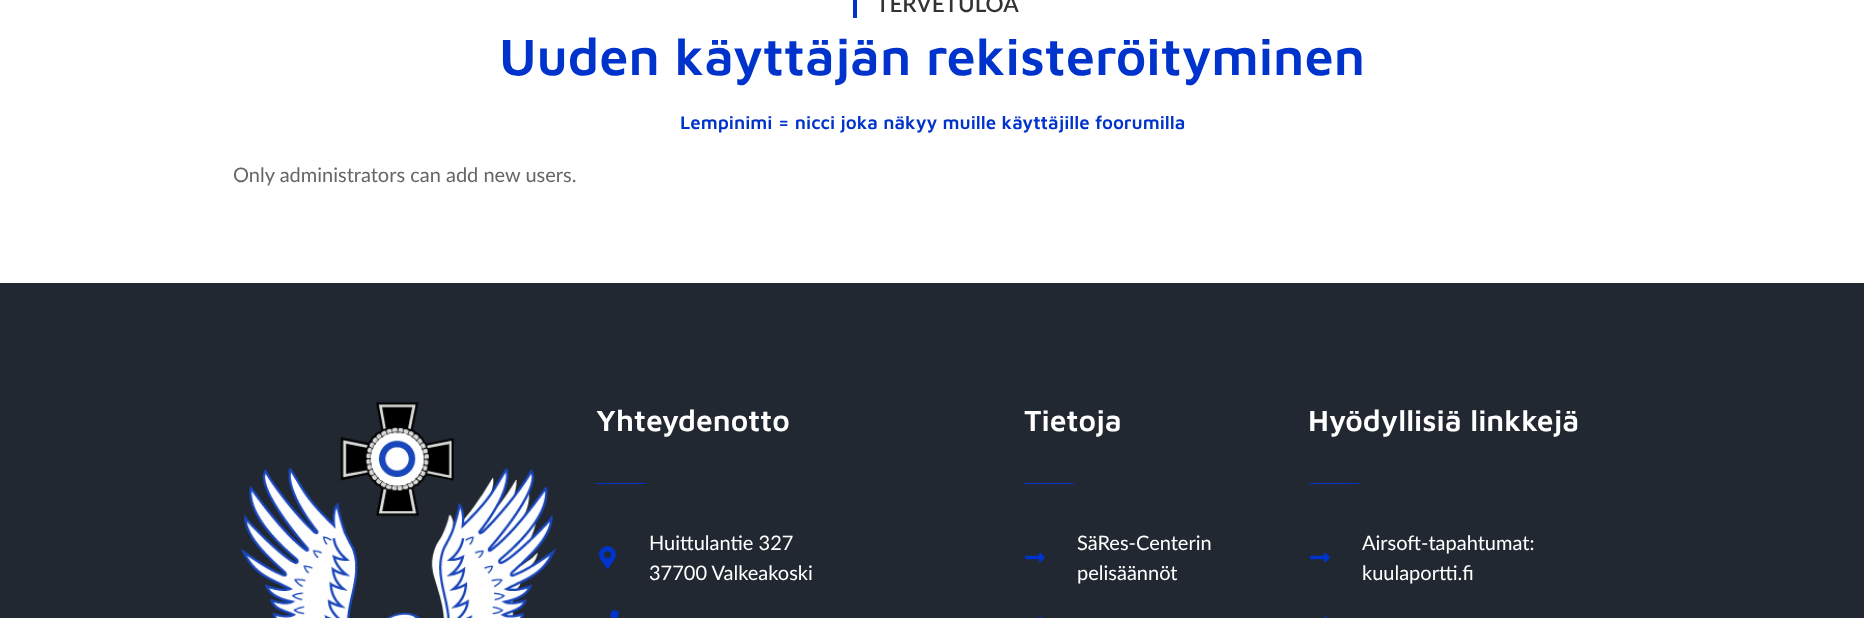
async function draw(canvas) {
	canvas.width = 1864;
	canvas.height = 618;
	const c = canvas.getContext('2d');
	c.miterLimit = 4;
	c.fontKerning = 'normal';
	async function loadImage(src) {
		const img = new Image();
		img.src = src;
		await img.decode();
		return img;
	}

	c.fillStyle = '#fff';
	c.fillRect(0, 0, 1864, 618);
	c.fillStyle = '#03c';
	c.fillRect(853, 0, 4, 18);
	c.font = '600 22.5px Lato';
	c.fillStyle = '#333';
	c.fillText('TERVETULOA', 876, 12);
	c.font = '600 52.5px Maven Pro';
	c.fillStyle = '#03c';
	c.fillText('Uuden käyttäjän rekisteröityminen', 499, 75);
	c.font = '600 18.75px Maven Pro';
	c.fillText('Lempinimi = nicci joka näkyy muille käyttäjille foorumilla', 680, 129);
	c.font = '20px Lato';
	c.fillStyle = '#666';
	c.fillText('Only administrators can add new users.', 233, 182);
	c.fillStyle = '#212831';
	c.fillRect(0, 283, 1864, 335);
	c.drawImage(await loadImage('img1.png'), 240, 402, 317, 216);
	c.font = '600 30px Maven Pro';
	c.fillStyle = '#fff';
	c.fillText('Yhteydenotto', 596, 431);
	c.fillStyle = '#03c';
	c.fillRect(596, 483, 50, 1);
	c.drawImage(await loadImage('img2.png'), 599, 546, 17, 23);
	c.font = '20px Lato';
	c.fillStyle = '#fff';
	c.fillText('Huittulantie 327', 649, 550);
	c.fillText('37700 Valkeakoski', 649, 580);
	c.drawImage(await loadImage('img3.png'), 610, 610, 9, 8);
	c.font = '600 30px Maven Pro';
	c.fillText('Tietoja', 1024, 431);
	c.fillStyle = '#03c';
	c.fillRect(1024, 483, 50, 1);
	c.drawImage(await loadImage('img4.png'), 1025, 552, 20, 11);
	c.font = '20px Lato';
	c.fillStyle = '#fff';
	c.fillText('SäRes-Centerin', 1077, 550);
	c.fillText('pelisäännöt', 1077, 580);
	c.drawImage(await loadImage('img5.png'), 1038, 616, 4, 2);
	c.font = '600 30px Maven Pro';
	c.fillText('Hyödyllisiä linkkejä', 1308, 431);
	c.fillStyle = '#03c';
	c.fillRect(1309, 483, 50, 1);
	c.drawImage(await loadImage('img4.png'), 1310, 552, 20, 11);
	c.font = '20px Lato';
	c.fillStyle = '#fff';
	c.fillText('Airsoft-tapahtumat:', 1362, 550);
	c.fillText('kuulaportti.fi', 1362, 580);
	c.drawImage(await loadImage('img5.png'), 1323, 616, 4, 2);
}

draw(document.querySelector('canvas'));
